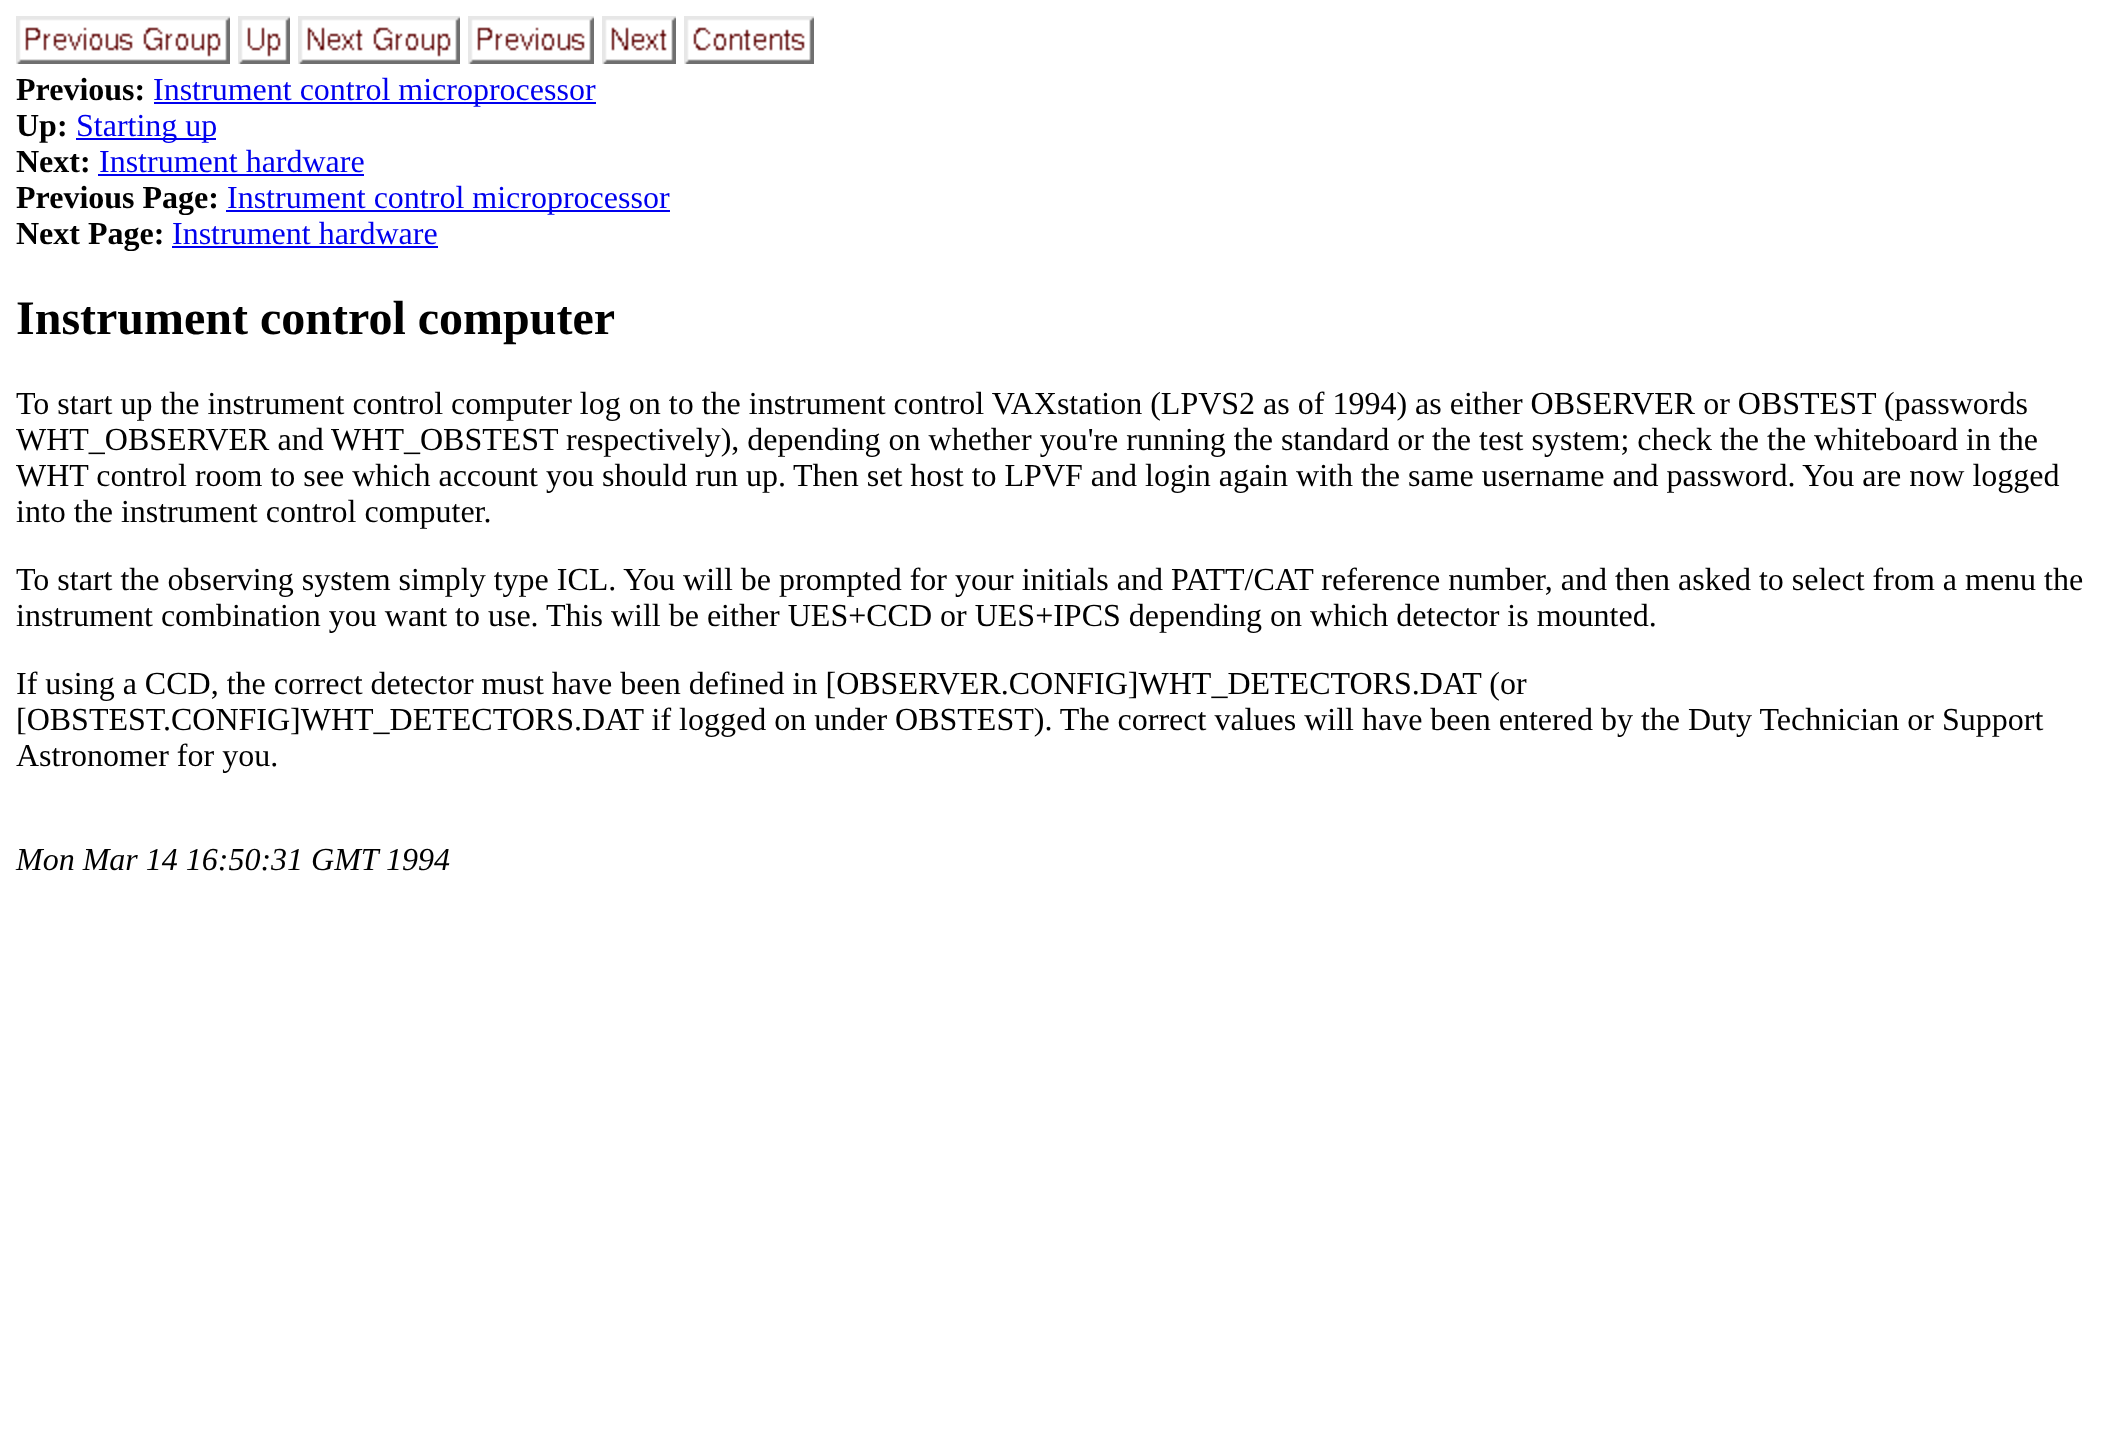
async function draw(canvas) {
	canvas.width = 2128;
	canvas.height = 1447;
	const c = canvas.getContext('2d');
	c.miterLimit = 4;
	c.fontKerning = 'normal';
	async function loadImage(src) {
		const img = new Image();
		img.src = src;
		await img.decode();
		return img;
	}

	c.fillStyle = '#fff';
	c.fillRect(0, 0, 2128, 1447);
	c.drawImage(await loadImage('img1.png'), 16, 16, 214, 48);
	c.drawImage(await loadImage('img2.png'), 238, 16, 52, 48);
	c.drawImage(await loadImage('img3.png'), 298, 16, 162, 48);
	c.drawImage(await loadImage('img4.png'), 468, 16, 126, 48);
	c.drawImage(await loadImage('img5.png'), 602, 16, 74, 48);
	c.drawImage(await loadImage('img6.png'), 684, 16, 130, 48);
	c.font = 'bold 32px Liberation Serif';
	c.fillStyle = '#000';
	c.fillText('Previous:', 16, 100);
	c.fillStyle = '#00e';
	c.fillRect(154, 102, 442, 2);
	c.font = '32px Liberation Serif';
	c.fillText('Instrument control microprocessor', 153, 100);
	c.font = 'bold 32px Liberation Serif';
	c.fillStyle = '#000';
	c.fillText('Up:', 16, 136);
	c.fillStyle = '#00e';
	c.fillRect(76, 138, 140, 2);
	c.font = '32px Liberation Serif';
	c.fillText('Starting up', 76, 136);
	c.font = 'bold 32px Liberation Serif';
	c.fillStyle = '#000';
	c.fillText('Next:', 16, 172);
	c.font = '32px Liberation Serif';
	c.fillStyle = '#00e';
	c.fillText('Instrument hardware', 99, 172);
	c.fillRect(98, 174, 266, 2);
	c.font = 'bold 32px Liberation Serif';
	c.fillStyle = '#000';
	c.fillText('Previous Page:', 16, 208);
	c.fillStyle = '#00e';
	c.fillRect(226, 210, 444, 2);
	c.font = '32px Liberation Serif';
	c.fillText('Instrument control microprocessor', 227, 208);
	c.font = 'bold 32px Liberation Serif';
	c.fillStyle = '#000';
	c.fillText('Next Page:', 16, 244);
	c.font = '32px Liberation Serif';
	c.fillStyle = '#00e';
	c.fillText('Instrument hardware', 172, 244);
	c.fillRect(172, 246, 266, 2);
	c.font = 'bold 48px Liberation Serif';
	c.fillStyle = '#000';
	c.fillText('Instrument control computer', 16, 334);
	c.font = '32px Liberation Serif';
	for (const [text, x, y] of [
		['To start up the instrument control computer log on to the instrument control VAXstation (LPVS2 as of 1994) as either OBSERVER or OBSTEST (passwords', 16, 414],
		['WHT_OBSERVER and WHT_OBSTEST respectively), depending on whether you\'re running the standard or the test system; check the the whiteboard in the', 16, 450],
		['WHT control room to see which account you should run up.', 16, 486],
		['Then set host to LPVF and login again with the same username and password. You are now logged', 793, 486],
		['into the instrument control computer.', 16, 522],
		['To start the observing system simply type ICL. You will be prompted for your initials and PATT/CAT reference number, and then asked to select from a menu the', 16, 590],
		['instrument combination you want to use. This will be either UES+CCD or UES+IPCS depending on which detector is mounted.', 16, 626],
		['If using a CCD, the correct detector must have been defined in [OBSERVER.CONFIG]WHT_DETECTORS.DAT (or', 16, 694],
		['[OBSTEST.CONFIG]WHT_DETECTORS.DAT if logged on under OBSTEST). The correct values will have been entered by the Duty Technician or Support', 16, 730],
		['Astronomer for you.', 16, 766],
	]) {
		c.fillText(text, x, y);
	}
	c.font = 'italic 32px Liberation Serif';
	c.fillText('Mon Mar 14 16:50:31 GMT 1994', 16, 870);
}

draw(document.querySelector('canvas'));
